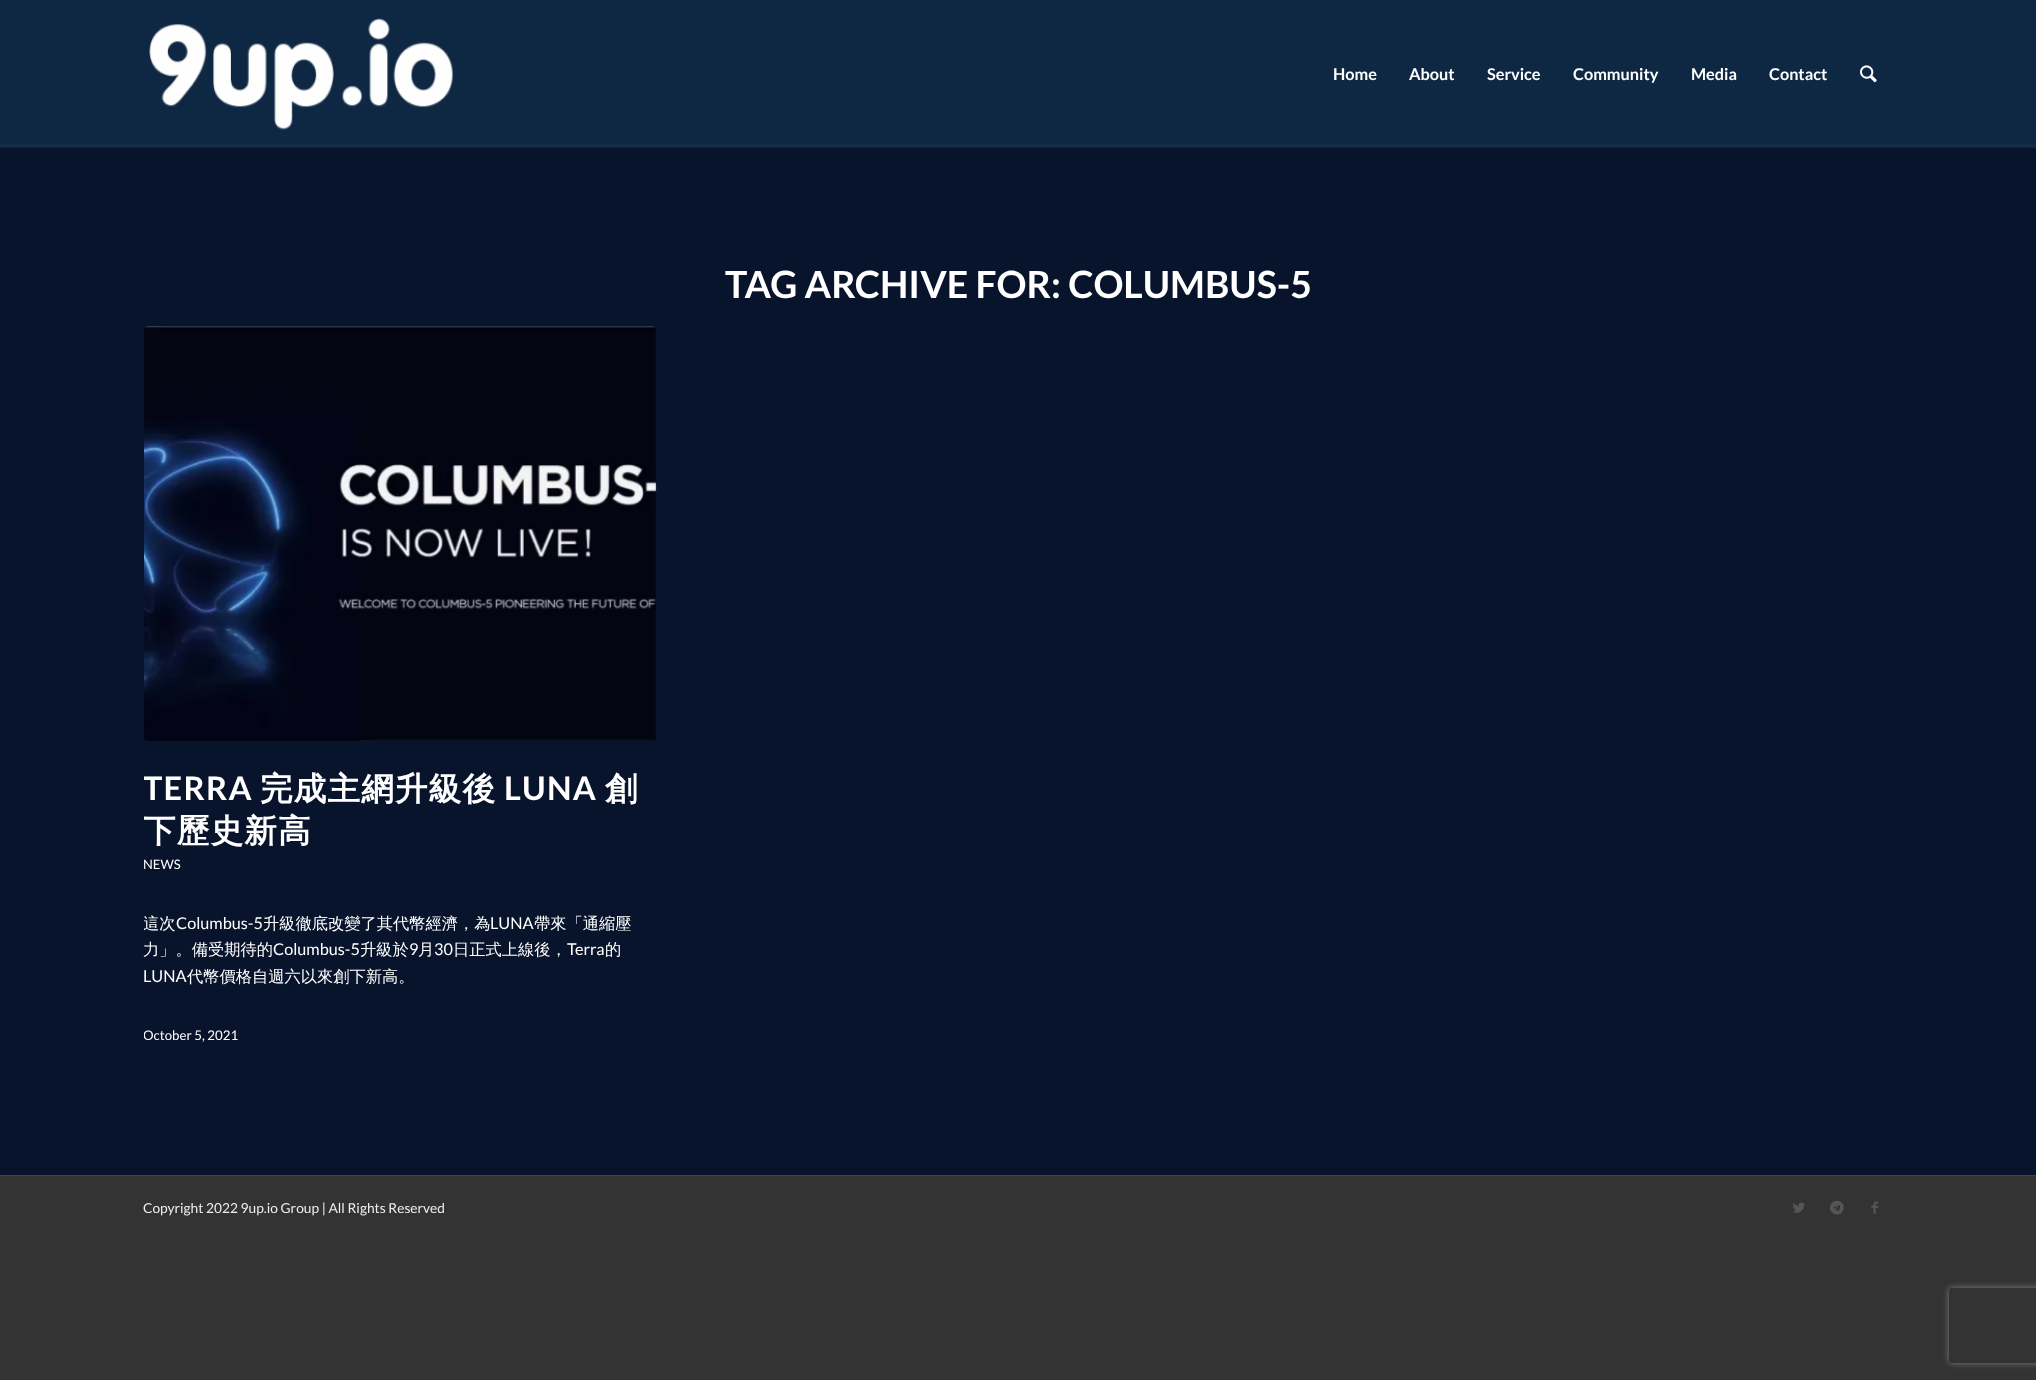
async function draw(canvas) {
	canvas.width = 2036;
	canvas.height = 1380;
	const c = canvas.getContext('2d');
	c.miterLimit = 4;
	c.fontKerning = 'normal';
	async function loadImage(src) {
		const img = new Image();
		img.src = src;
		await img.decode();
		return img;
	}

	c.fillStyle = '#333';
	c.fillRect(0, 0, 2036, 1380);
	c.fillStyle = '#0e2843';
	c.fillRect(0, 0, 2036, 145);
	c.drawImage(await loadImage('img1.png'), 149, 18, 305, 112);
	c.font = 'bold 16.25px Lato';
	c.fillStyle = '#fff';
	for (const [text, x, y] of [
		['Home', 1333, 80],
		['About', 1409, 80],
		['Service', 1487, 80],
		['Community', 1573, 80],
		['Media', 1691, 80],
		['Contact', 1769, 80],
	]) {
		c.fillText(text, x, y);
	}
	c.drawImage(await loadImage('img2.png'), 1860, 65, 17, 18);
	for (const [x, y, w, h, color] of [
		[0, 148, 2036, 1027, '#08142c'],
		[0, 146, 2036, 2, '#0e2742'],
		[0, 145, 2036, 1, '#19314b'],
	]) {
		c.fillStyle = color;
		c.fillRect(x, y, w, h);
	}
	c.font = 'bold 37.5px Lato';
	c.fillStyle = '#fff';
	c.fillText('TAG ARCHIVE FOR: COLUMBUS-5', 725, 298);
	c.fillStyle = '#081c3c';
	c.beginPath();
	c.roundRect(144, 326, 512, 415, 4);
	c.fill();
	c.drawImage(await loadImage('img3.png'), 144, 326, 513, 415);
	c.save();
	c.beginPath();
	c.rect(144, 326, 1750, 787);
	c.clip();
	c.letterSpacing = '1.25px';
	c.font = 'bold 32.5px Lato';
	c.fillStyle = '#fff';
	c.fillText('TERRA', 143, 800);
	c.restore();
	c.letterSpacing = '1.25px';
	c.font = 'bold 32.5px WenQuanYi Zen Hei';
	c.fillStyle = '#fff';
	c.fillText('完成主網升級後', 260, 800);
	c.font = 'bold 32.5px Lato';
	c.fillText('LUNA', 504, 800);
	c.font = 'bold 32.5px WenQuanYi Zen Hei';
	c.fillText('創', 605, 800);
	c.save();
	c.beginPath();
	c.rect(144, 326, 1750, 787);
	c.clip();
	c.fillText('下歷史新高', 143, 842);
	c.restore();
	c.letterSpacing = '0px';
	c.font = '13px Lato';
	c.fillText('NEWS', 143, 869);
	c.save();
	c.beginPath();
	c.rect(144, 910, 512, 80);
	c.clip();
	c.font = '500 16.25px WenQuanYi Zen Hei';
	c.fillText('這次', 143, 929);
	c.restore();
	c.font = '16.25px Lato';
	c.fillText('Columbus-5', 176, 929);
	c.font = '500 16.25px WenQuanYi Zen Hei';
	c.fillText('升級徹底改變了其代幣經濟，為', 263, 929);
	c.font = '16.25px Lato';
	c.fillText('LUNA', 490, 929);
	c.font = '500 16.25px WenQuanYi Zen Hei';
	c.fillText('帶來「通縮壓', 534, 929);
	c.fillText('力」。備受期待的', 143, 955);
	c.font = '16.25px Lato';
	c.fillText('Columbus-5', 273, 955);
	c.font = '500 16.25px WenQuanYi Zen Hei';
	c.fillText('升級於', 360, 955);
	c.font = '16.25px Lato';
	c.fillText('9', 409, 955);
	c.font = '500 16.25px WenQuanYi Zen Hei';
	c.fillText('月', 418, 955);
	c.font = '16.25px Lato';
	c.fillText('30', 434, 955);
	c.font = '500 16.25px WenQuanYi Zen Hei';
	c.fillText('日正式上線後，', 453, 955);
	c.font = '16.25px Lato';
	c.fillText('Terra', 567, 955);
	c.font = '500 16.25px WenQuanYi Zen Hei';
	c.fillText('的', 605, 955);
	c.font = '16.25px Lato';
	c.fillText('LUNA', 143, 982);
	c.font = '500 16.25px WenQuanYi Zen Hei';
	c.fillText('代幣價格自週六以來創下新高。', 187, 982);
	c.save();
	c.beginPath();
	c.rect(144, 326, 1750, 787);
	c.clip();
	c.font = '13.25px Lato';
	c.fillText('October 5, 2021', 143, 1040);
	c.restore();
	c.fillStyle = '#444';
	c.fillRect(0, 1175, 2036, 1);
	c.font = '13.75px Lato';
	c.fillStyle = '#eee';
	c.fillText('Copyright 2022 9up.io Group | All Rights Reserved', 143, 1213);
	c.drawImage(await loadImage('img4.png'), 1793, 1202, 12, 11);
	c.drawImage(await loadImage('img5.png'), 1830, 1200, 14, 15);
	c.drawImage(await loadImage('img6.png'), 1871, 1201, 8, 13);
	c.save();
	c.beginPath();
	c.moveTo(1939, 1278);
	c.lineTo(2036, 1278);
	c.lineTo(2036, 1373);
	c.lineTo(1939, 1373);
	c.closePath();
	c.moveTo(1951.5, 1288);
	c.lineTo(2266.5, 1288);
	c.bezierCurveTo(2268, 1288, 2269, 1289, 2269, 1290.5);
	c.lineTo(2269, 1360.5);
	c.bezierCurveTo(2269, 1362, 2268, 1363, 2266.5, 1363);
	c.lineTo(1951.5, 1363);
	c.bezierCurveTo(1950, 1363, 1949, 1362, 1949, 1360.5);
	c.lineTo(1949, 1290.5);
	c.bezierCurveTo(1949, 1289, 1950, 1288, 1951.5, 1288);
	c.closePath();
	c.clip('evenodd');
	c.fillStyle = '#808080';
	c.filter = 'blur(3px)';
	c.beginPath();
	c.roundRect(1949, 1288, 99, 75, 2.5);
	c.fill();
	c.filter = 'none';
	c.restore();
}

draw(document.querySelector('canvas'));
